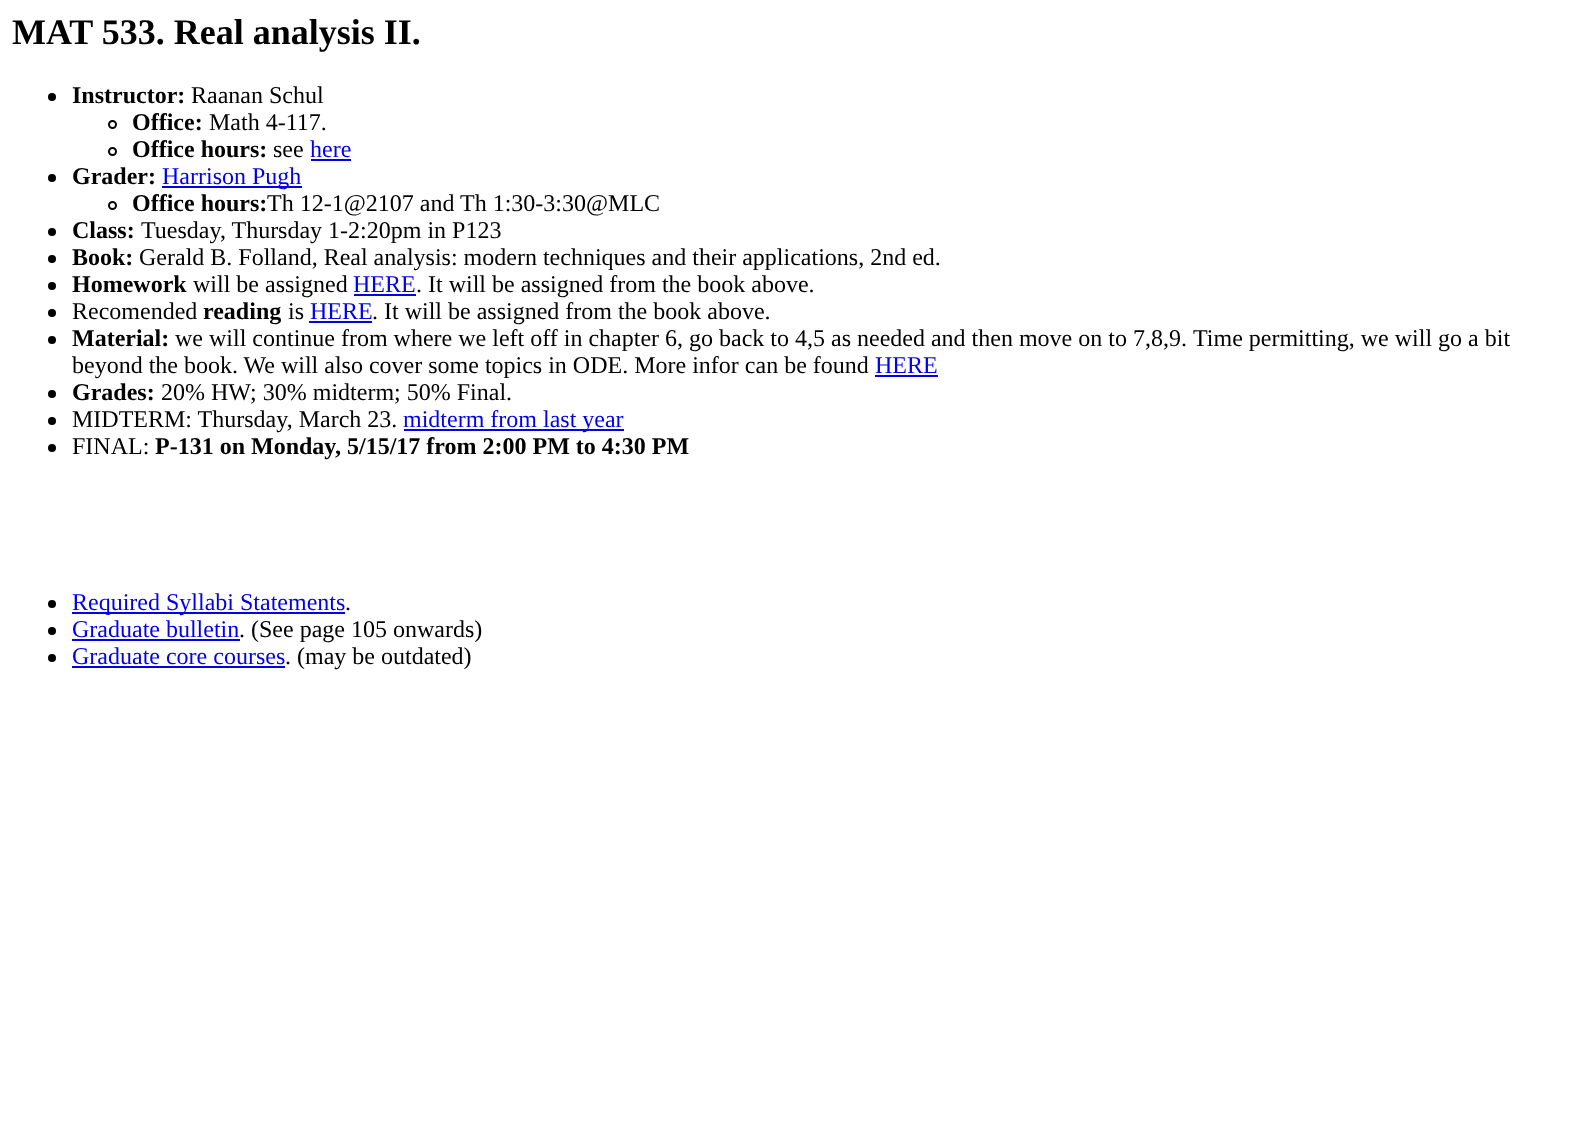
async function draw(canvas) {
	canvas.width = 1586;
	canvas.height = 1138;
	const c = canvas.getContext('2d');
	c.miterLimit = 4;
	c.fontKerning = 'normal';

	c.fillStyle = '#fff';
	c.fillRect(0, 0, 1586, 1138);
	c.font = 'bold 36px Liberation Serif';
	c.fillStyle = '#000';
	c.fillText('MAT 533. Real analysis II.', 12, 44);
	c.beginPath();
	c.arc(52, 97, 4, 0, 2 * Math.PI);
	c.fill();
	c.font = 'bold 24px Liberation Serif';
	c.fillText('Instructor:', 72, 103);
	c.font = '24px Liberation Serif';
	c.fillText('Raanan Schul', 191, 103);
	c.beginPath();
	c.arc(112.5, 124.5, 3.5, 0, 2 * Math.PI);
	c.strokeStyle = '#000';
	c.lineWidth = 2;
	c.stroke();
	c.font = 'bold 24px Liberation Serif';
	c.fillText('Office:', 132, 130);
	c.font = '24px Liberation Serif';
	c.fillText('Math 4-117.', 209, 130);
	c.beginPath();
	c.arc(112.5, 151.5, 3.5, 0, 2 * Math.PI);
	c.stroke();
	c.font = 'bold 24px Liberation Serif';
	c.fillText('Office hours:', 132, 157);
	c.font = '24px Liberation Serif';
	c.fillText('see', 273, 157);
	c.fillStyle = '#00e';
	c.fillText('here', 310, 157);
	c.fillRect(311, 159, 40, 2);
	c.fillStyle = '#000';
	c.beginPath();
	c.arc(52, 178, 4, 0, 2 * Math.PI);
	c.fill();
	c.font = 'bold 24px Liberation Serif';
	c.fillText('Grader:', 72, 184);
	c.fillStyle = '#00e';
	c.fillRect(162, 186, 140, 2);
	c.font = '24px Liberation Serif';
	c.fillText('Harrison Pugh', 162, 184);
	c.beginPath();
	c.arc(112.5, 205.5, 3.5, 0, 2 * Math.PI);
	c.stroke();
	c.font = 'bold 24px Liberation Serif';
	c.fillStyle = '#000';
	c.fillText('Office hours:', 132, 211);
	c.font = '24px Liberation Serif';
	c.fillText('Th 12-1@2107 and Th 1:30-3:30@MLC', 267, 211);
	c.beginPath();
	c.arc(52, 232, 4, 0, 2 * Math.PI);
	c.fill();
	c.font = 'bold 24px Liberation Serif';
	c.fillText('Class:', 72, 238);
	c.font = '24px Liberation Serif';
	c.fillText('Tuesday, Thursday 1-2:20pm in P123', 141, 238);
	c.beginPath();
	c.arc(52, 259, 4, 0, 2 * Math.PI);
	c.fill();
	c.font = 'bold 24px Liberation Serif';
	c.fillText('Book:', 72, 265);
	c.font = '24px Liberation Serif';
	c.fillText('Gerald B. Folland, Real analysis: modern techniques and their applications, 2nd ed.', 139, 265);
	c.beginPath();
	c.arc(52, 286, 4, 0, 2 * Math.PI);
	c.fill();
	c.font = 'bold 24px Liberation Serif';
	c.fillText('Homework', 72, 292);
	c.font = '24px Liberation Serif';
	c.fillText('will be assigned', 193, 292);
	c.fillStyle = '#00e';
	c.fillText('HERE', 353, 292);
	c.fillRect(354, 294, 62, 2);
	c.fillStyle = '#000';
	c.fillText('. It will be assigned from the book above.', 416, 292);
	c.beginPath();
	c.arc(52, 313, 4, 0, 2 * Math.PI);
	c.fill();
	c.fillText('Recomended', 72, 319);
	c.font = 'bold 24px Liberation Serif';
	c.fillText('reading', 203, 319);
	c.font = '24px Liberation Serif';
	c.fillText('is', 288, 319);
	c.fillStyle = '#00e';
	c.fillText('HERE', 310, 319);
	c.fillRect(309, 321, 63, 2);
	c.fillStyle = '#000';
	c.fillText('. It will be assigned from the book above.', 372, 319);
	c.beginPath();
	c.arc(52, 340, 4, 0, 2 * Math.PI);
	c.fill();
	c.font = 'bold 24px Liberation Serif';
	c.fillText('Material:', 72, 346);
	c.font = '24px Liberation Serif';
	for (const [text, x, y] of [
		['we will continue from where we left off in chapter 6, go back to 4,5 as needed and then move on to 7,8,9.', 175, 346],
		['Time permitting, we will go a bit', 1193, 346],
		['beyond the book. We will also cover some topics in ODE. More infor can be found', 72, 373],
	]) {
		c.fillText(text, x, y);
	}
	c.fillStyle = '#00e';
	c.fillText('HERE', 875, 373);
	c.fillRect(875, 375, 63, 2);
	c.fillStyle = '#000';
	c.beginPath();
	c.arc(52, 394, 4, 0, 2 * Math.PI);
	c.fill();
	c.font = 'bold 24px Liberation Serif';
	c.fillText('Grades:', 72, 400);
	c.font = '24px Liberation Serif';
	c.fillText('20% HW; 30% midterm; 50% Final.', 161, 400);
	c.beginPath();
	c.arc(52, 421, 4, 0, 2 * Math.PI);
	c.fill();
	c.fillText('MIDTERM: Thursday, March 23.', 72, 427);
	c.fillStyle = '#00e';
	c.fillRect(404, 429, 220, 2);
	c.fillText('midterm from last year', 403, 427);
	c.fillStyle = '#000';
	c.beginPath();
	c.arc(52, 448, 4, 0, 2 * Math.PI);
	c.fill();
	c.fillText('FINAL:', 72, 454);
	c.font = 'bold 24px Liberation Serif';
	c.fillText('P-131 on Monday, 5/15/17 from 2:00 PM to 4:30 PM', 155, 454);
	c.beginPath();
	c.arc(52, 604, 4, 0, 2 * Math.PI);
	c.fill();
	c.fillStyle = '#00e';
	c.fillRect(72, 612, 273, 2);
	c.font = '24px Liberation Serif';
	c.fillText('Required Syllabi Statements', 72, 610);
	c.fillStyle = '#000';
	c.fillText('.', 345, 610);
	c.beginPath();
	c.arc(52, 631, 4, 0, 2 * Math.PI);
	c.fill();
	c.fillStyle = '#00e';
	c.fillText('Graduate bulletin', 72, 637);
	c.fillRect(72, 639, 168, 2);
	c.fillStyle = '#000';
	c.fillText('. (See page 105 onwards)', 239, 637);
	c.beginPath();
	c.arc(52, 658, 4, 0, 2 * Math.PI);
	c.fill();
	c.fillStyle = '#00e';
	c.fillText('Graduate core courses', 72, 664);
	c.fillRect(72, 666, 213, 2);
	c.fillStyle = '#000';
	c.fillText('. (may be outdated)', 285, 664);
}

draw(document.querySelector('canvas'));
